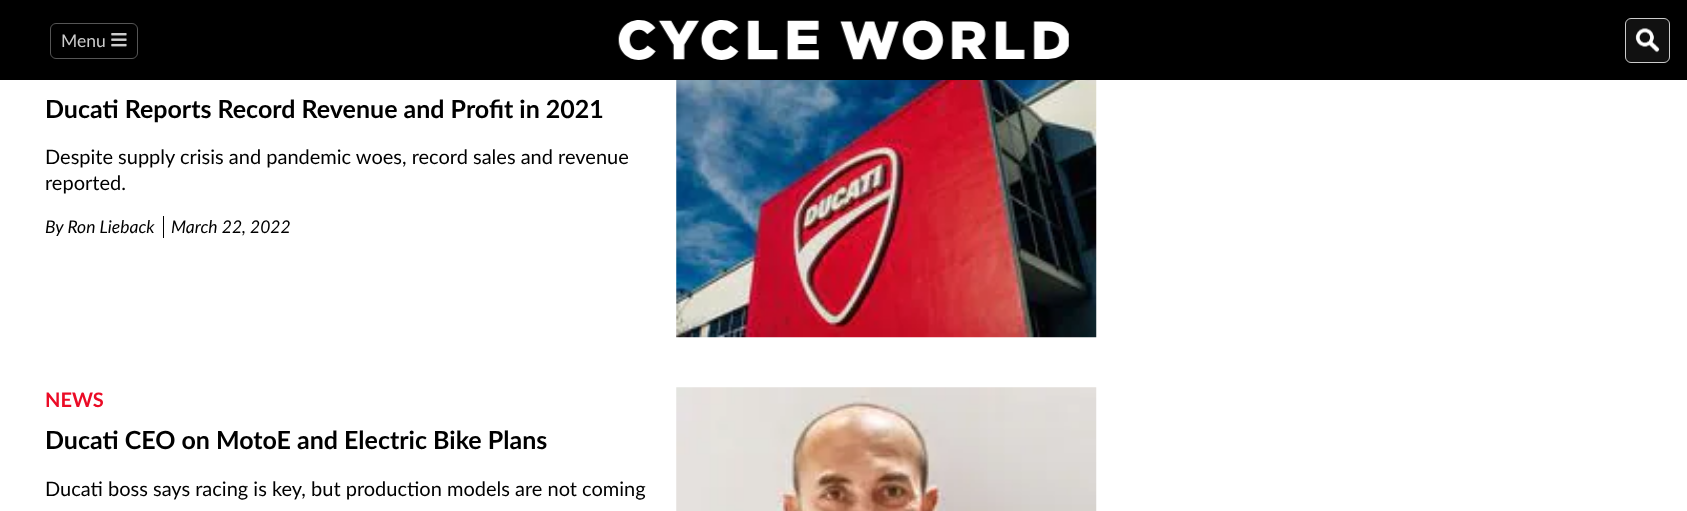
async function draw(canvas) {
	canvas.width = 1687;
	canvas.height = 511;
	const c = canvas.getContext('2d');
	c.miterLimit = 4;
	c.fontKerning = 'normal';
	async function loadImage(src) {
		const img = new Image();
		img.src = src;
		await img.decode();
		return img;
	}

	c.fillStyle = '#fff';
	c.fillRect(0, 0, 1687, 511);
	c.fillStyle = '#000';
	c.fillRect(0, 0, 1687, 80);
	c.beginPath();
	c.roundRect(50.5, 23.5, 87, 35, 5.5);
	c.strokeStyle = '#555';
	c.stroke();
	c.font = '17.5px Lato';
	c.fillStyle = '#ccc';
	c.fillText('Menu', 61, 47);
	c.drawImage(await loadImage('img1.png'), 111, 33, 16, 14);
	c.drawImage(await loadImage('img2.png'), 618, 20, 451, 40);
	c.fillStyle = '#111';
	c.beginPath();
	c.roundRect(1625.5, 18.5, 44, 44, 5.5);
	c.fill();
	c.strokeStyle = '#ccc';
	c.stroke();
	c.drawImage(await loadImage('img3.png'), 1635, 28, 25, 25);
	c.font = 'bold 25px Lato';
	c.fillStyle = '#000';
	c.fillText('Ducati Reports Record Revenue and Profit in 2021', 45, 118);
	c.font = '20px Lato';
	c.fillText('Despite supply crisis and pandemic woes, record sales and revenue', 45, 164);
	c.fillText('reported.', 45, 190);
	c.font = 'italic 17.5px Lato';
	c.fillText('By Ron Lieback', 45, 233);
	c.fillRect(163, 216, 1, 22);
	c.fillText('March 22, 2022', 171, 233);
	c.drawImage(await loadImage('img4.png'), 676, 80, 421, 258);
	c.font = 'bold 20px Lato';
	c.fillStyle = '#eb0b26';
	c.fillText('NEWS', 45, 407);
	c.font = 'bold 25px Lato';
	c.fillStyle = '#000';
	c.fillText('Ducati CEO on MotoE and Electric Bike Plans', 45, 449);
	c.font = '20px Lato';
	c.fillText('Ducati boss says racing is key, but production models are not coming', 45, 496);
	c.drawImage(await loadImage('img5.png'), 676, 387, 421, 124);
}

draw(document.querySelector('canvas'));
